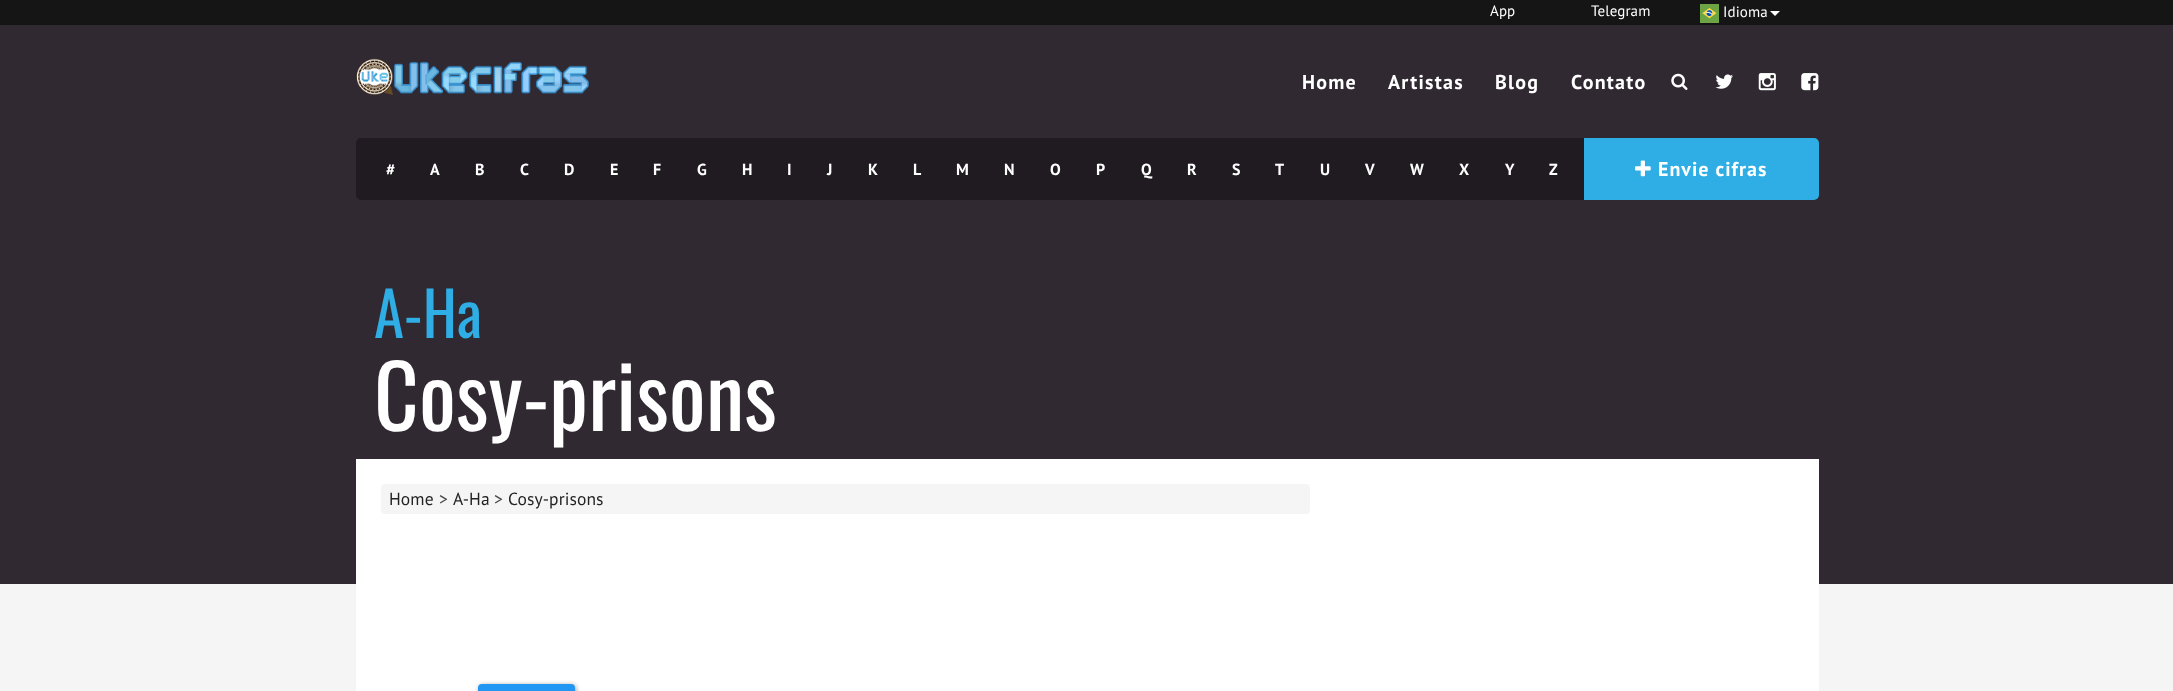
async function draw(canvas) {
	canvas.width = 2173;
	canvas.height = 691;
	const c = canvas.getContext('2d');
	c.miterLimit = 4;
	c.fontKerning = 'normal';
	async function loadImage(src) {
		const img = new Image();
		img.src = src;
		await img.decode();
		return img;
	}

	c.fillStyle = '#f5f5f5';
	c.fillRect(0, 0, 2173, 691);
	c.fillStyle = '#151515';
	c.fillRect(0, 0, 2173, 25);
	c.letterSpacing = '0.1px';
	c.font = '15px PT Sans';
	c.fillStyle = '#fff';
	c.fillText('App', 1490, 16);
	c.fillText('Telegram', 1591, 16);
	c.drawImage(await loadImage('img1.png'), 1700, 4, 19, 19);
	c.fillText('Idioma', 1723, 17);
	c.beginPath();
	c.moveTo(1770, 11);
	c.lineTo(1780, 11);
	c.lineTo(1775, 16);
	c.closePath();
	c.fill();
	c.fillStyle = '#302932';
	c.fillRect(0, 25, 2173, 559);
	c.drawImage(await loadImage('img2.png'), 356, 58, 233, 37);
	c.letterSpacing = '1.25px';
	c.font = 'bold 20px PT Sans';
	c.fillStyle = '#fff';
	for (const [text, x, y] of [
		['Home', 1302, 89],
		['Artistas', 1388, 89],
		['Blog', 1495, 89],
		['Contato', 1571, 89],
	]) {
		c.fillText(text, x, y);
	}
	c.drawImage(await loadImage('img3.png'), 1671, 73, 17, 17);
	c.drawImage(await loadImage('img4.png'), 1715, 74, 18, 15);
	c.drawImage(await loadImage('img5.png'), 1758, 73, 18, 18);
	c.drawImage(await loadImage('img6.png'), 1801, 73, 18, 18);
	c.fillStyle = '#1f1b20';
	c.beginPath();
	c.roundRect(356, 138, 1463, 62, 5);
	c.fill();
	c.letterSpacing = '0.1px';
	c.font = 'bold 16px PT Sans';
	c.fillStyle = '#fff';
	for (const [text, x, y] of [
		['#', 386, 175],
		['A', 430, 175],
		['B', 475, 175],
		['C', 520, 175],
		['D', 564, 175],
		['E', 610, 175],
		['F', 653, 175],
		['G', 697, 175],
		['H', 742, 175],
		['I', 787, 175],
		['J', 827, 175],
		['K', 868, 175],
		['L', 913, 175],
		['M', 956, 175],
		['N', 1004, 175],
		['O', 1050, 175],
		['P', 1096, 175],
		['Q', 1141, 175],
		['R', 1187, 175],
		['S', 1232, 175],
		['T', 1275, 175],
		['U', 1320, 175],
		['V', 1365, 175],
		['W', 1410, 175],
		['X', 1459, 175],
		['Y', 1505, 175],
		['Z', 1549, 175],
	]) {
		c.fillText(text, x, y);
	}
	c.fillStyle = '#2eaee4';
	c.beginPath();
	c.roundRect(1584, 138, 235, 62, [0, 5, 5, 0]);
	c.fill();
	c.drawImage(await loadImage('img7.png'), 1635, 160, 16, 17);
	c.letterSpacing = '1px';
	c.font = 'bold 20px PT Sans';
	c.fillStyle = '#fff';
	c.fillText('Envie cifras', 1658, 176);
	c.letterSpacing = '0.1px';
	c.font = '61px Oswald';
	c.fillStyle = '#2eaee4';
	c.fillText('A-Ha', 374, 338);
	c.font = '87px Oswald';
	c.fillStyle = '#fff';
	c.fillText('Cosy-prisons', 374, 431);
	c.fillRect(356, 459, 1463, 232);
	c.fillStyle = '#f5f5f5';
	c.beginPath();
	c.roundRect(381, 484, 929, 30, 4);
	c.fill();
	c.font = '17.5px PT Sans';
	c.fillStyle = '#222';
	c.fillText('Home', 389, 505);
	c.fillStyle = '#444';
	c.fillText('>', 439, 505);
	c.fillStyle = '#222';
	c.fillText('A-Ha', 453, 505);
	c.fillStyle = '#444';
	c.fillText('>', 494, 505);
	c.fillStyle = '#222';
	c.fillText('Cosy-prisons', 508, 505);
	c.fillStyle = '#00000066';
	c.filter = 'blur(2.5px)';
	c.beginPath();
	c.roundRect(479, 685, 97, 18, 4);
	c.fill();
	c.filter = 'none';
	c.fillStyle = '#2196f3';
	c.beginPath();
	c.roundRect(478, 684, 97, 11, 4);
	c.fill();
}

draw(document.querySelector('canvas'));
